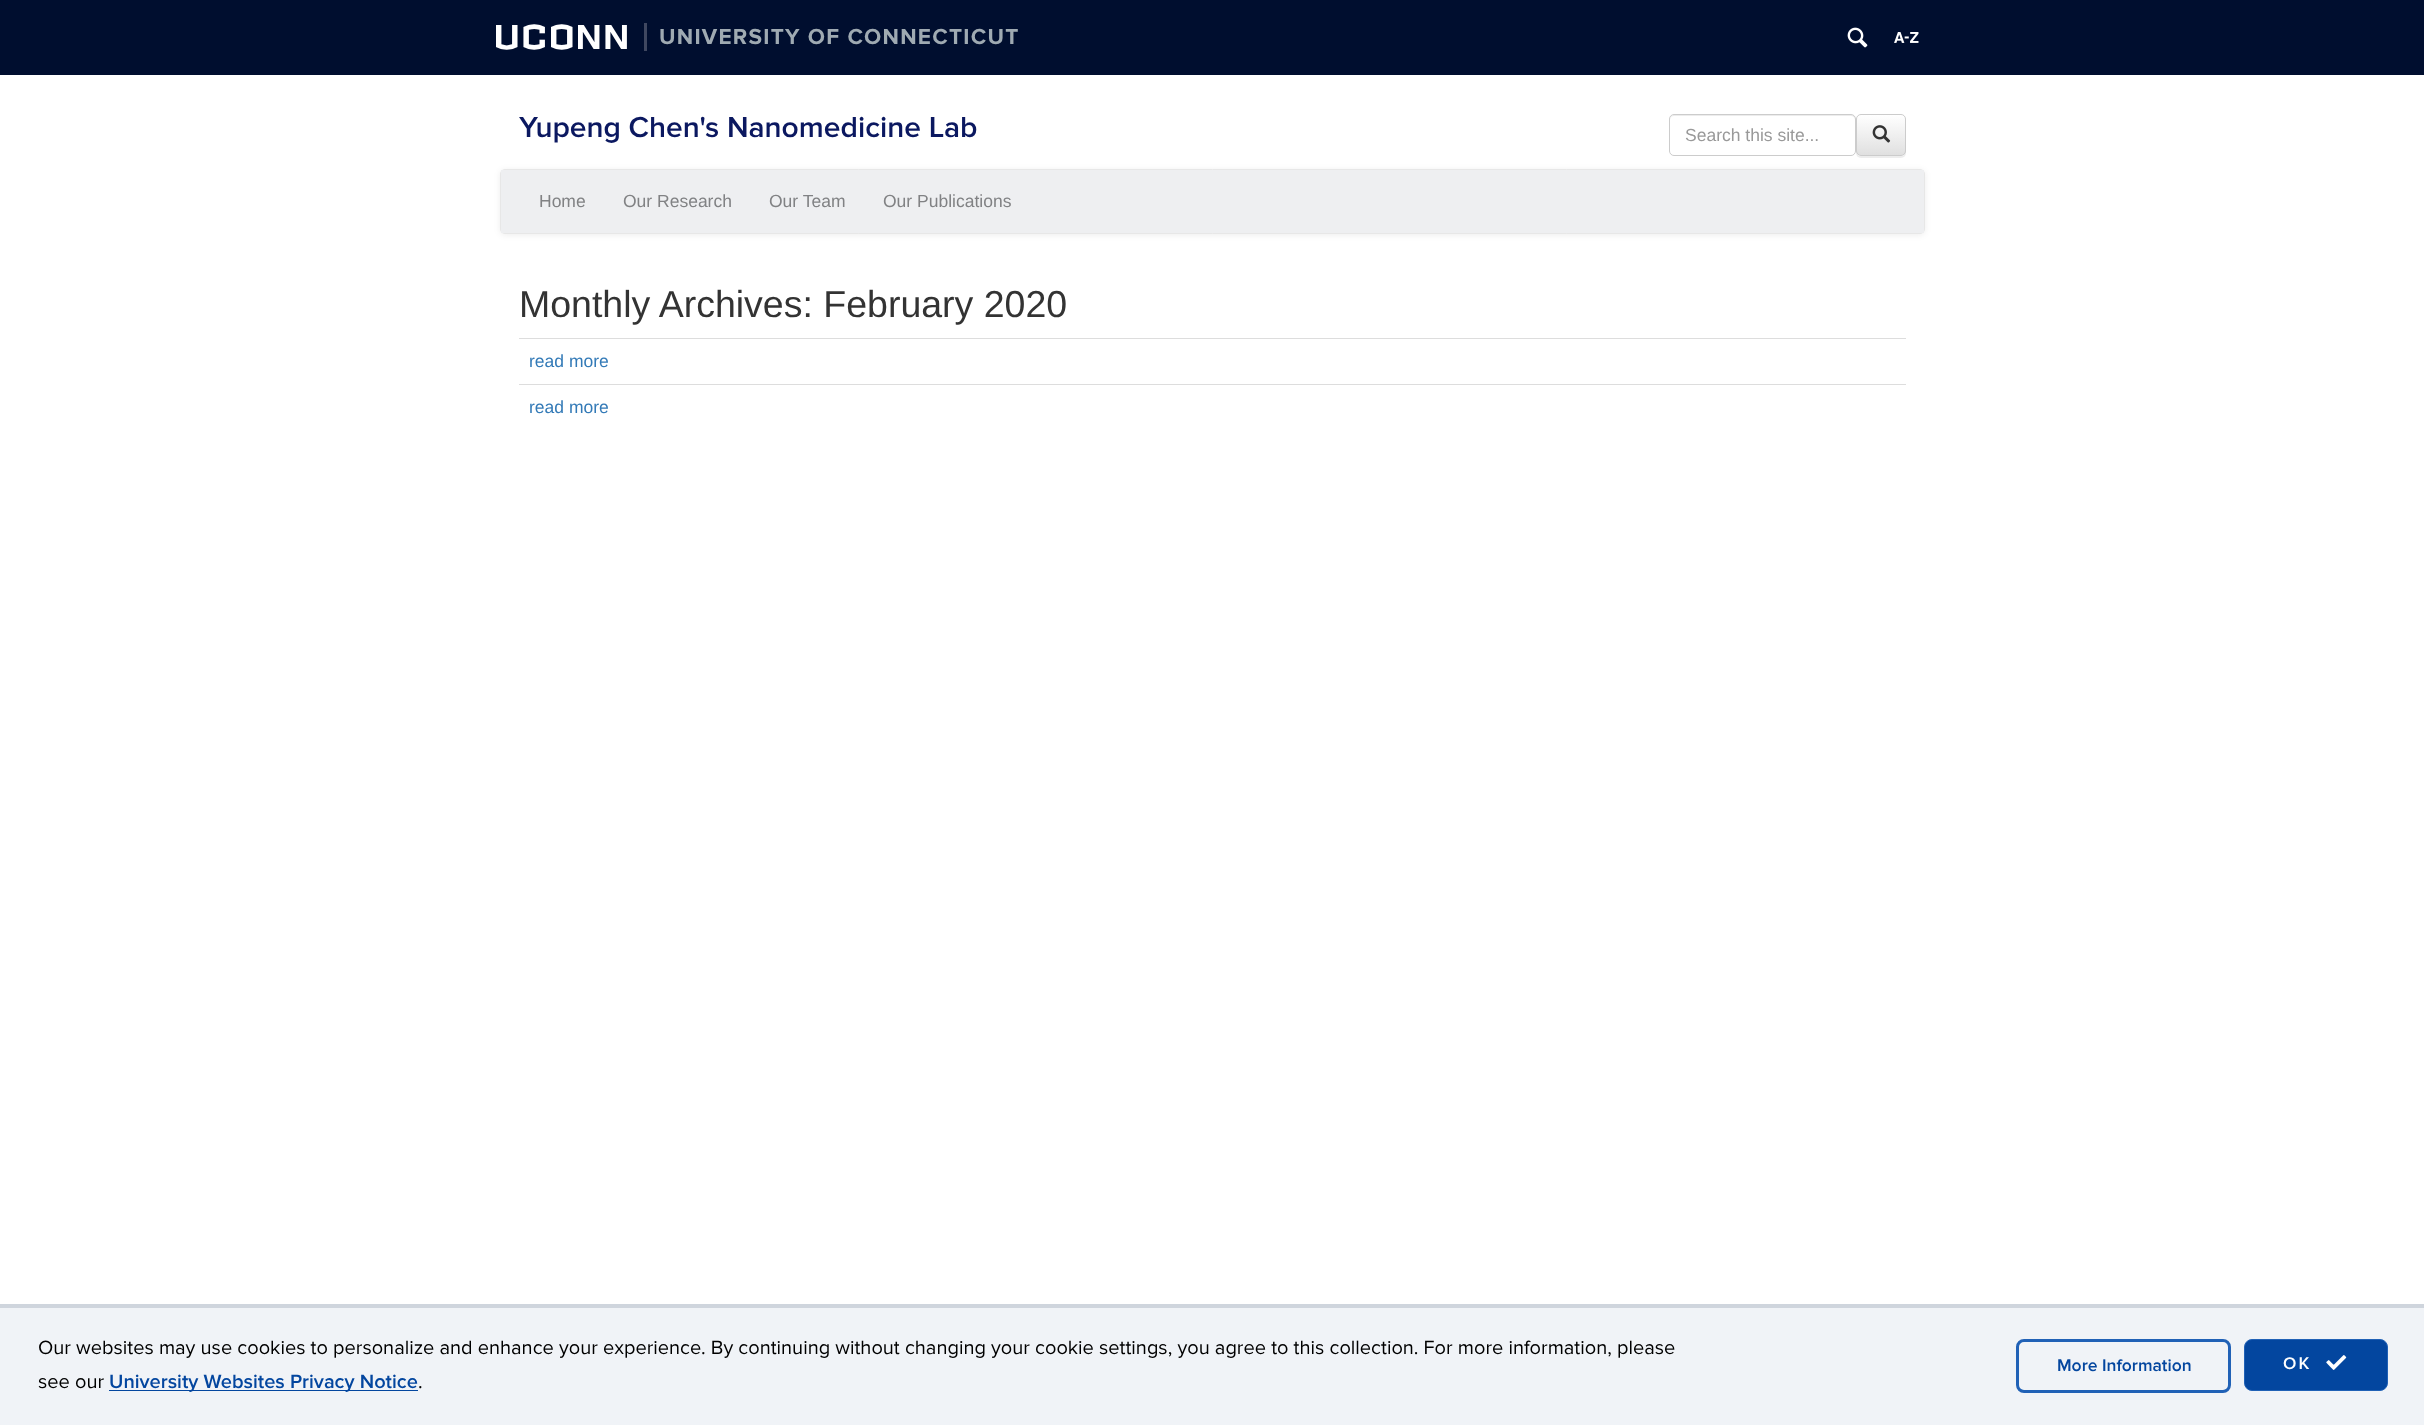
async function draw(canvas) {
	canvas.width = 2424;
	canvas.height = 1425;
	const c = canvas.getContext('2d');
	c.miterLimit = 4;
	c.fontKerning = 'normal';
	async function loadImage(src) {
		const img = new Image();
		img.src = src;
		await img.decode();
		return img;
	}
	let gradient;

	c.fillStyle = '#fff';
	c.fillRect(0, 0, 2424, 1425);
	c.fillStyle = '#000e2f';
	c.fillRect(0, 0, 2424, 75);
	c.letterSpacing = '3.75px';
	c.font = '40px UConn';
	c.fillStyle = '#fff';
	c.fillText('UCONN', 496, 49);
	c.letterSpacing = '1.25px';
	c.font = 'bold 22.5px Proxima Nova';
	c.fillStyle = '#9faab2';
	c.fillText('UNIVERSITY OF CONNECTICUT', 659, 44);
	c.fillStyle = '#3f4760';
	c.fillRect(644, 23, 3, 28);
	c.drawImage(await loadImage('img1.png'), 1847, 27, 21, 21);
	c.drawImage(await loadImage('img2.png'), 1894, 32, 25, 11);
	c.letterSpacing = '0px';
	c.font = '600 30px Proxima Nova';
	c.fillStyle = '#0b1860';
	c.fillText('Yupeng Chen\'s Nanomedicine Lab', 519, 137);
	c.fillStyle = '#ececec';
	c.beginPath();
	c.moveTo(1674, 116);
	c.lineTo(1851, 116);
	c.bezierCurveTo(1853, 116, 1855, 118, 1855, 120);
	c.bezierCurveTo(1855, 117, 1854, 115, 1851, 115);
	c.lineTo(1673, 115);
	c.bezierCurveTo(1671, 116, 1670, 118, 1670, 120);
	c.bezierCurveTo(1670, 118, 1672, 116, 1674, 116);
	c.closePath();
	c.fill();
	c.beginPath();
	c.roundRect(1669.5, 114.5, 186, 41, 4.5);
	c.strokeStyle = '#ccc';
	c.stroke();
	c.font = '17.5px Liberation Sans';
	c.fillStyle = '#999';
	c.fillText('Search this site...', 1685, 141);
	c.save();
	c.beginPath();
	c.moveTo(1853, 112);
	c.lineTo(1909, 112);
	c.lineTo(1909, 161);
	c.lineTo(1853, 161);
	c.closePath();
	c.moveTo(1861, 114);
	c.lineTo(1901, 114);
	c.bezierCurveTo(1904, 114, 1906, 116, 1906, 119);
	c.lineTo(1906, 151);
	c.bezierCurveTo(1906, 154, 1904, 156, 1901, 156);
	c.lineTo(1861, 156);
	c.bezierCurveTo(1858, 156, 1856, 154, 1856, 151);
	c.lineTo(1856, 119);
	c.bezierCurveTo(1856, 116, 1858, 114, 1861, 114);
	c.closePath();
	c.clip('evenodd');
	c.fillStyle = '#00000012';
	c.filter = 'blur(0.5px)';
	c.beginPath();
	c.roundRect(1856, 115, 50, 43, 5);
	c.fill();
	c.filter = 'none';
	c.restore();
	c.save();
	c.beginPath();
	c.roundRect(1856, 114, 50, 42, 5);
	c.clip();
	gradient = c.createLinearGradient(1881, 115, 1881, 155);
	gradient.addColorStop(0, '#fff');
	gradient.addColorStop(1, '#e0e0e0');
	c.fillStyle = gradient;
	c.fillRect(1856, 115, 50, 40);
	c.restore();
	c.beginPath();
	c.roundRect(1856.5, 114.5, 49, 41, 4.5);
	c.stroke();
	c.drawImage(await loadImage('img3.png'), 1872, 125, 19, 18);
	c.fillStyle = '#00000012';
	c.filter = 'blur(3px)';
	c.beginPath();
	c.roundRect(500, 170, 1425, 65, 5);
	c.fill();
	c.filter = 'none';
	c.beginPath();
	c.roundRect(500.5, 169.5, 1424, 64, 4.5);
	c.strokeStyle = '#e7e7e7';
	c.stroke();
	c.fillStyle = '#eeeff1';
	c.fillRect(501, 170, 1423, 63);
	c.fillStyle = '#818284';
	for (const [text, x, y] of [
		['Home', 539, 207],
		['Our Research', 623, 207],
		['Our Team', 769, 207],
		['Our Publications', 883, 207],
	]) {
		c.fillText(text, x, y);
	}
	c.font = '37.5px Liberation Sans';
	c.fillStyle = '#333';
	c.fillText('Monthly Archives: February 2020', 519, 317);
	c.fillStyle = '#ddd';
	c.fillRect(519, 338, 1387, 1);
	c.font = '17.5px Liberation Sans';
	c.fillStyle = '#337ab7';
	c.fillText('read more', 529, 367);
	c.fillStyle = '#ddd';
	c.fillRect(519, 384, 1387, 1);
	c.fillStyle = '#337ab7';
	c.fillText('read more', 529, 413);
	c.fillStyle = '#f0f3f7';
	c.fillRect(0, 1308, 2424, 117);
	c.fillStyle = '#cfd5dd';
	c.fillRect(0, 1304, 2424, 4);
	c.font = '20px Proxima Nova';
	c.fillStyle = '#000';
	c.fillText('Our websites may use cookies to personalize and enhance your experience. By continuing without changing your cookie settings, you agree to this collection. For more information, please', 38, 1354);
	c.fillText('see our', 38, 1388);
	c.fillStyle = '#03469f';
	c.fillRect(109, 1390, 309, 1);
	c.font = '600 20px Proxima Nova';
	c.fillText('University Websites Privacy Notice', 109, 1388);
	c.font = '20px Proxima Nova';
	c.fillStyle = '#000';
	c.fillText('.', 418, 1388);
	c.beginPath();
	c.roundRect(2017.5, 1340.5, 212, 51, 6.5);
	c.strokeStyle = '#2061b6';
	c.lineWidth = 3;
	c.stroke();
	c.font = '600 17.5px Proxima Nova';
	c.fillStyle = '#03469f';
	c.fillText('More Information', 2057, 1371);
	c.beginPath();
	c.roundRect(2244.5, 1339.5, 143, 51, 7.5);
	c.fill();
	c.lineWidth = 1;
	c.stroke();
	c.letterSpacing = '2px';
	c.fillStyle = '#fff';
	c.fillText('OK', 2283, 1369);
	c.drawImage(await loadImage('img4.png'), 2326, 1355, 21, 15);
}

draw(document.querySelector('canvas'));
